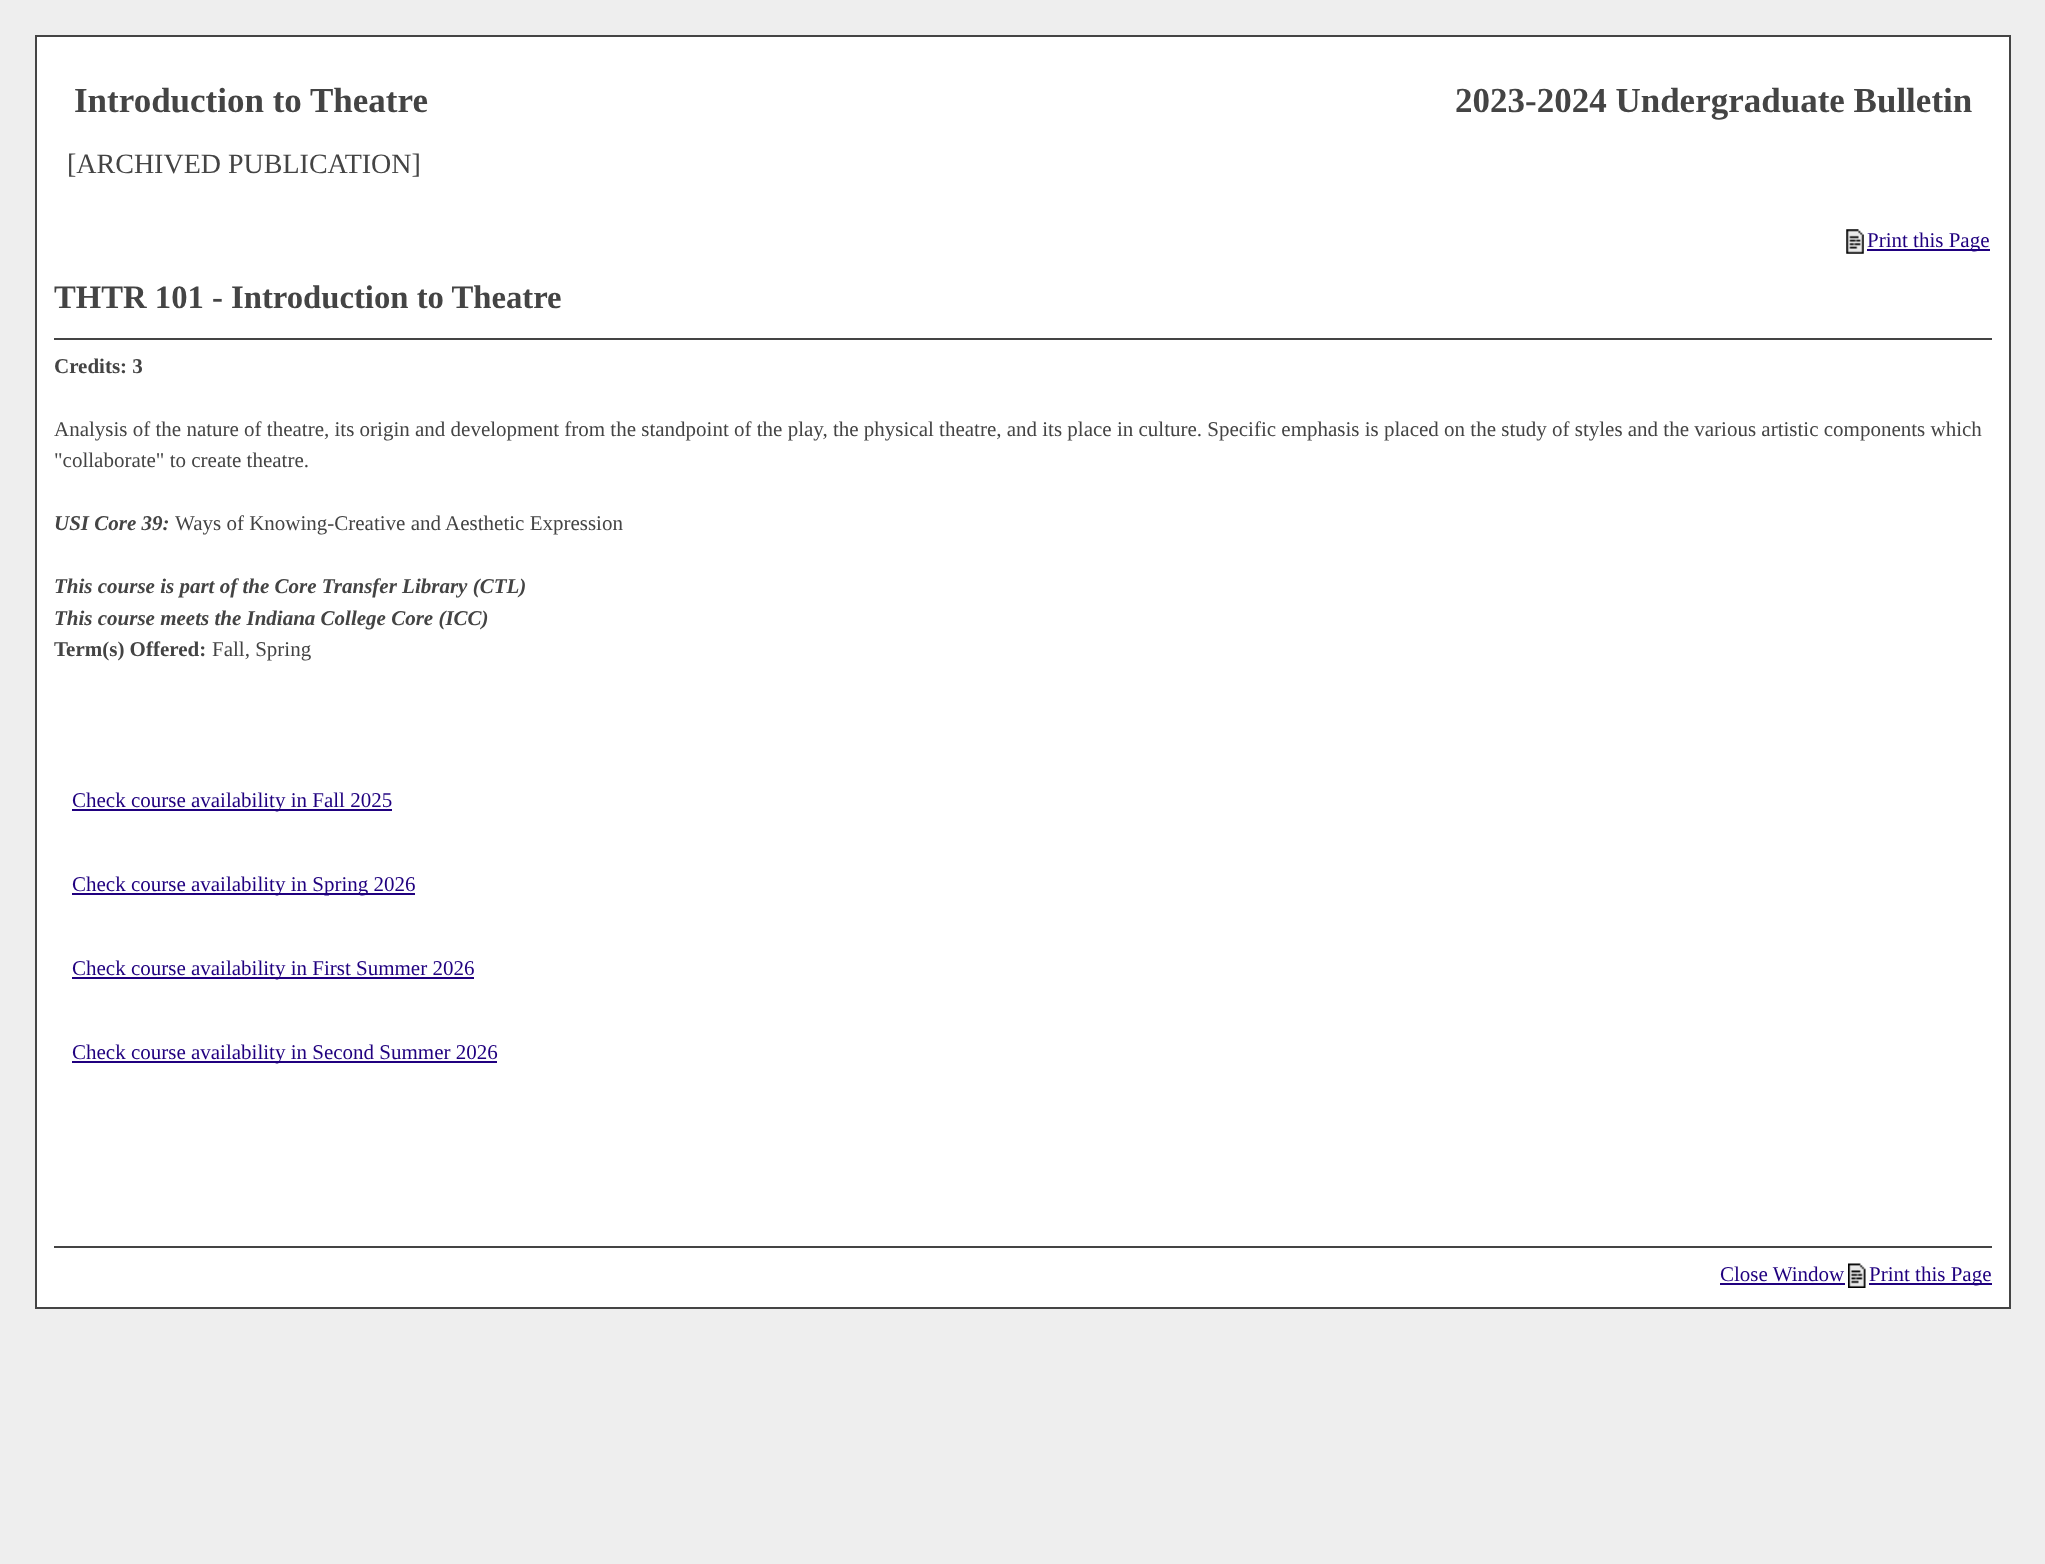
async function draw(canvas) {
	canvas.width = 2045;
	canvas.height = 1564;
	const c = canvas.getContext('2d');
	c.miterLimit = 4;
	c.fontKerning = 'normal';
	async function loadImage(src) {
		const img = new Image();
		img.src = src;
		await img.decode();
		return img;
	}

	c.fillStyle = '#eee';
	c.fillRect(0, 0, 2045, 1564);
	c.fillStyle = '#fff';
	c.beginPath();
	c.rect(36, 36, 1974, 1272);
	c.fill();
	c.strokeStyle = '#444';
	c.lineWidth = 2;
	c.stroke();
	c.font = 'bold 35px Liberation Serif';
	c.fillStyle = '#444';
	c.fillText('Introduction to Theatre', 74, 112);
	c.font = '28px Liberation Serif';
	c.fillText('[ARCHIVED PUBLICATION]', 67, 173);
	c.font = 'bold 35px Liberation Serif';
	c.fillText('2023-2024 Undergraduate Bulletin', 1455, 112);
	c.drawImage(await loadImage('img1.png'), 1846, 229, 18, 25);
	c.fillStyle = '#20007f';
	c.fillRect(1867, 249, 123, 2);
	c.font = '21px Liberation Serif';
	c.fillText('Print this Page', 1867, 247);
	c.font = 'bold 32.7px Liberation Serif';
	c.fillStyle = '#444';
	c.fillText('THTR 101 - Introduction to Theatre', 54, 308);
	c.fillRect(54, 338, 1938, 2);
	c.font = 'bold 21px Liberation Serif';
	c.fillText('Credits: 3', 54, 373);
	c.font = '21px Liberation Serif';
	c.fillText('Analysis of the nature of theatre, its origin and development from the standpoint of the play, the physical theatre, and its place in culture. Specific emphasis is placed on the study of styles and the various artistic components which', 54, 436);
	c.fillText('"collaborate" to create theatre.', 54, 467);
	c.font = 'italic bold 21px Liberation Serif';
	c.fillText('USI Core 39:', 54, 530);
	c.font = '21px Liberation Serif';
	c.fillText('Ways of Knowing-Creative and Aesthetic Expression', 175, 530);
	c.font = 'italic bold 21px Liberation Serif';
	c.fillText('This course is part of the Core Transfer Library (CTL)', 54, 593);
	c.fillText('This course meets the Indiana College Core (ICC)', 54, 625);
	c.font = 'bold 21px Liberation Serif';
	c.fillText('Term(s) Offered:', 54, 656);
	c.font = '21px Liberation Serif';
	c.fillText('Fall, Spring', 212, 656);
	c.fillStyle = '#20007f';
	c.fillRect(72, 809, 320, 2);
	c.fillText('Check course availability in Fall 2025', 72, 807);
	c.fillRect(72, 893, 343, 2);
	c.fillText('Check course availability in Spring 2026', 72, 891);
	c.fillRect(72, 977, 402, 2);
	c.fillText('Check course availability in First Summer 2026', 72, 975);
	c.fillRect(72, 1061, 425, 2);
	c.fillText('Check course availability in Second Summer 2026', 72, 1059);
	c.fillStyle = '#444';
	c.fillRect(54, 1246, 1938, 2);
	c.fillStyle = '#20007f';
	c.fillText('Close Window', 1720, 1281);
	c.fillRect(1720, 1283, 125, 2);
	c.drawImage(await loadImage('img2.png'), 1848, 1263, 18, 25);
	c.fillRect(1869, 1283, 123, 2);
	c.fillText('Print this Page', 1869, 1281);
}

draw(document.querySelector('canvas'));
